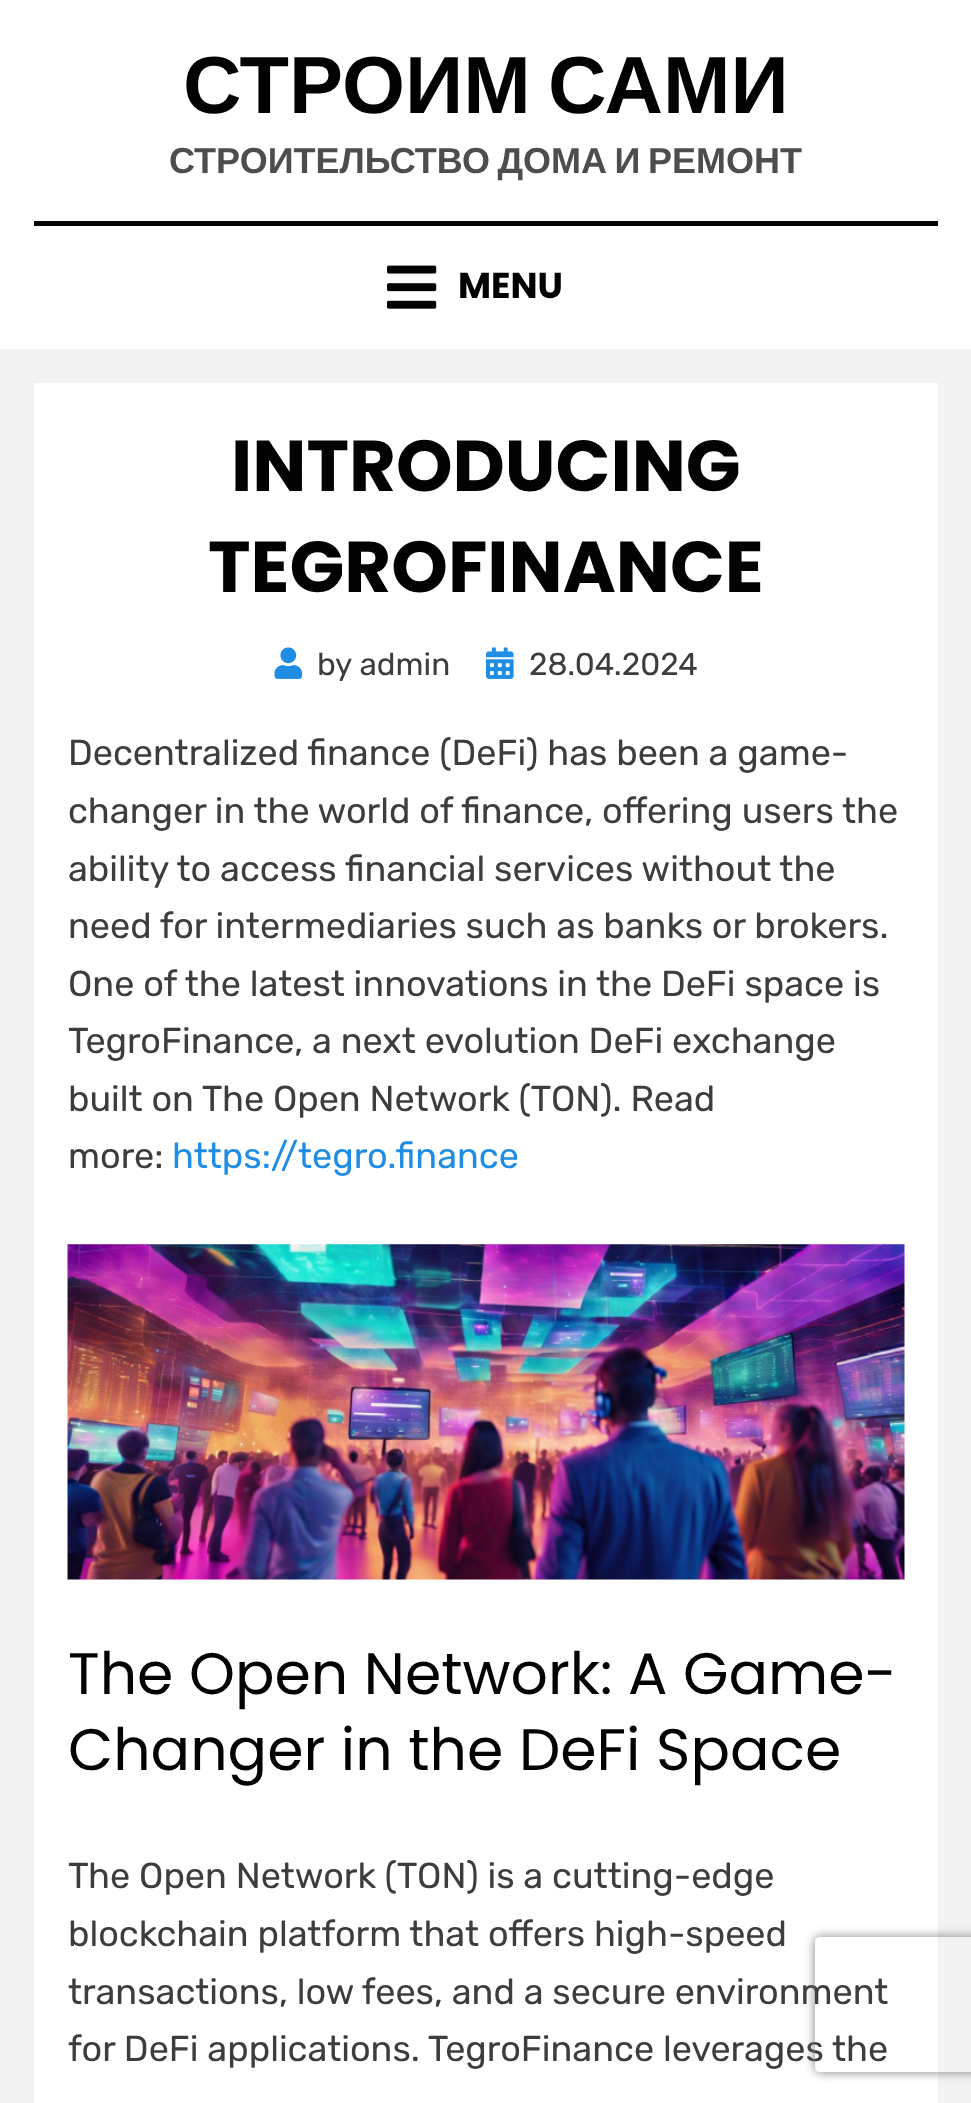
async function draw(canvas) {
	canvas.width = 971;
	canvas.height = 2103;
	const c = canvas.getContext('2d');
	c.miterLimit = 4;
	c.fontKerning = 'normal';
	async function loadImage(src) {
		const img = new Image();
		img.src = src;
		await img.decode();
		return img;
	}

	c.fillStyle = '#f2f2f2';
	c.fillRect(0, 0, 971, 2103);
	c.fillStyle = '#fff';
	c.fillRect(0, 0, 971, 349);
	c.wordSpacing = '-5px';
	c.font = 'bold 81px Liberation Sans';
	c.fillStyle = '#020202';
	c.fillText('СТРОИМ САМИ', 183, 113);
	c.wordSpacing = '-2.5px';
	c.font = 'bold 36px Liberation Sans';
	c.fillStyle = '#4d4d4d';
	c.fillText('СТРОИТЕЛЬСТВО ДОМА И РЕМОНТ', 169, 173);
	c.fillStyle = '#020202';
	c.fillRect(34, 221, 904, 5);
	c.drawImage(await loadImage('img1.png'), 387, 265, 50, 44);
	c.wordSpacing = '0px';
	c.font = 'bold 36px Poppins';
	c.fillText('MENU', 458, 298);
	c.fillStyle = '#fff';
	c.fillRect(34, 383, 904, 1720);
	c.font = 'bold 72px Poppins';
	c.fillStyle = '#020202';
	c.fillText('INTRODUCING', 231, 491);
	c.fillText('TEGROFINANCE', 208, 592);
	c.drawImage(await loadImage('img2.png'), 274, 647, 29, 32);
	c.font = '31.5px Rubik';
	c.fillStyle = '#3d3d3d';
	c.fillText('by admin', 317, 675);
	c.drawImage(await loadImage('img3.png'), 486, 647, 28, 32);
	c.fillText('28.04.2024', 529, 675);
	c.font = '36px Rubik';
	for (const [text, x, y] of [
		['Decentralized finance (DeFi) has been a game-', 68, 765],
		['changer in the world of finance, offering users the', 68, 823],
		['ability to access financial services without the', 68, 881],
		['need for intermediaries such as banks or brokers.', 68, 938],
		['One of the latest innovations in the DeFi space is', 68, 996],
		['TegroFinance, a next evolution DeFi exchange', 68, 1053],
		['built on The Open Network (TON). Read', 68, 1111],
		['more:', 68, 1168],
	]) {
		c.fillText(text, x, y);
	}
	c.fillStyle = '#208de5';
	c.fillText('https://tegro.finance', 172, 1168);
	c.drawImage(await loadImage('img4.png'), 67, 1244, 838, 336);
	c.font = '58.5px Poppins';
	c.fillStyle = '#020202';
	c.fillText('The Open Network: A Game-', 68, 1694);
	c.fillText('Changer in the DeFi Space', 68, 1770);
	c.font = '36px Rubik';
	c.fillStyle = '#3d3d3d';
	for (const [text, x, y] of [
		['The Open Network (TON) is a cutting-edge', 68, 1888],
		['blockchain platform that offers high-speed', 68, 1946],
		['transactions, low fees, and a secure environment', 68, 2004],
		['for DeFi applications. TegroFinance leverages the', 68, 2061],
	]) {
		c.fillText(text, x, y);
	}
	c.save();
	c.beginPath();
	c.moveTo(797, 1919);
	c.lineTo(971, 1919);
	c.lineTo(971, 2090);
	c.lineTo(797, 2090);
	c.closePath();
	c.moveTo(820, 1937);
	c.lineTo(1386, 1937);
	c.bezierCurveTo(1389, 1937, 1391, 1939, 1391, 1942);
	c.lineTo(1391, 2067);
	c.bezierCurveTo(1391, 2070, 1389, 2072, 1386, 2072);
	c.lineTo(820, 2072);
	c.bezierCurveTo(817, 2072, 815, 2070, 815, 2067);
	c.lineTo(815, 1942);
	c.bezierCurveTo(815, 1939, 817, 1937, 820, 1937);
	c.closePath();
	c.clip('evenodd');
	c.fillStyle = '#808080';
	c.filter = 'blur(5.5px)';
	c.beginPath();
	c.roundRect(815, 1937, 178, 135, 5);
	c.fill();
	c.filter = 'none';
	c.restore();
}

draw(document.querySelector('canvas'));
